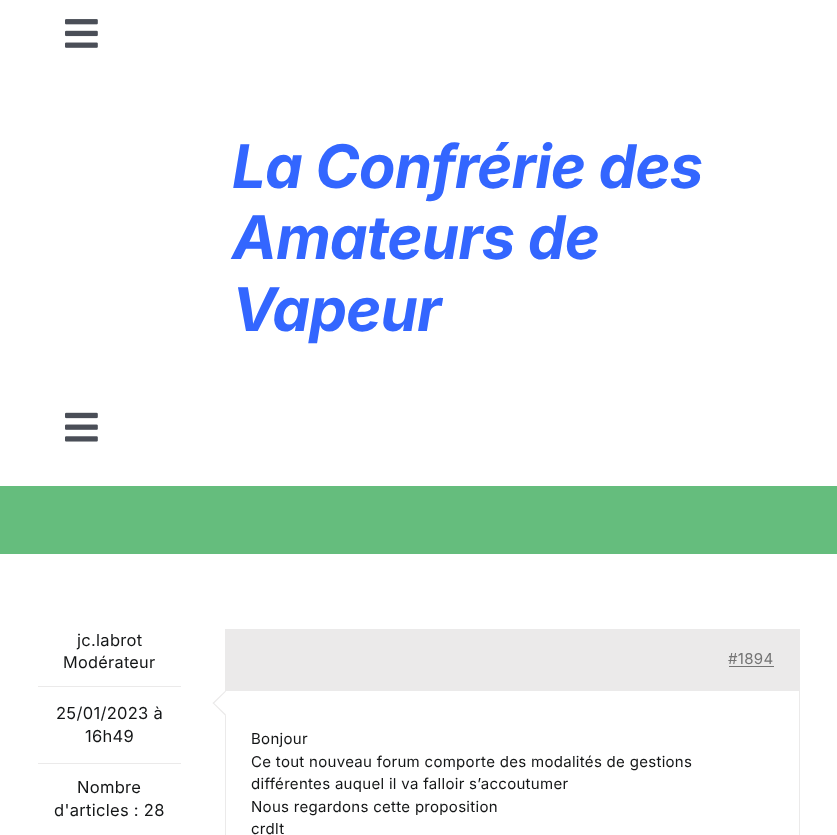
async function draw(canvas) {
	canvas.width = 837;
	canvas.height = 835;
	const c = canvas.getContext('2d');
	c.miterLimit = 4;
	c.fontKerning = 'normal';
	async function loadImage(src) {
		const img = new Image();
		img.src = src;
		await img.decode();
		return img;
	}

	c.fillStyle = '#fff';
	c.fillRect(0, 0, 837, 835);
	c.drawImage(await loadImage('img1.png'), 65, 19, 33, 29);
	c.letterSpacing = '-0.9px';
	c.font = 'italic bold 60px Inter';
	c.fillStyle = '#36f';
	for (const [text, x, y] of [
		['La Confrérie des', 232, 188],
		['Amateurs de', 232, 259],
		['Vapeur', 232, 331],
	]) {
		c.fillText(text, x, y);
	}
	c.drawImage(await loadImage('img2.png'), 65, 412, 33, 30);
	c.fillStyle = '#65bd7d';
	c.fillRect(0, 486, 837, 68);
	c.letterSpacing = '0.3px';
	c.font = '16.5px Inter';
	c.fillStyle = '#141617';
	c.fillText('jc.labrot', 77, 646);
	c.font = '16.25px Inter';
	c.fillText('Modérateur', 63, 668);
	c.fillStyle = '#ebeaea';
	c.fillRect(38, 686, 143, 1);
	c.fillRect(38, 763, 143, 1);
	c.font = '16.5px Inter';
	c.fillStyle = '#141617';
	for (const [text, x, y] of [
		['25/01/2023 à', 56, 719],
		['16h49', 85, 742],
		['Nombre', 77, 793],
		['d\'articles : 28', 54, 816],
	]) {
		c.fillText(text, x, y);
	}
	c.strokeStyle = '#ebeaea';
	c.strokeRect(225.5, 629.5, 574, 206);
	c.fillStyle = '#ebeaea';
	c.fillRect(226, 630, 573, 61);
	c.font = '15px Inter';
	c.fillStyle = '#747474';
	c.fillText('#1894', 728, 664);
	c.fillRect(729, 666, 45, 1);
	c.fillStyle = '#fff';
	c.beginPath();
	c.moveTo(225, 691);
	c.lineTo(237.5, 703);
	c.lineTo(225, 715.5);
	c.lineTo(212.5, 703);
	c.closePath();
	c.fill();
	c.fillStyle = '#ebeaea';
	c.beginPath();
	c.moveTo(213.5, 702.5);
	c.lineTo(226, 714.5);
	c.lineTo(225, 715.5);
	c.lineTo(212.5, 703);
	c.closePath();
	c.fill();
	c.beginPath();
	c.moveTo(225, 691);
	c.lineTo(226, 691.5);
	c.lineTo(213.5, 704);
	c.lineTo(212.5, 703);
	c.closePath();
	c.fill();
	c.fillStyle = '#141617';
	for (const [text, x, y] of [
		['Bonjour', 251, 744],
		['Ce tout nouveau forum comporte des modalités de gestions', 251, 767],
		['différentes auquel il va falloir s’accoutumer', 251, 789],
		['Nous regardons cette proposition', 251, 812],
		['crdlt', 251, 834],
	]) {
		c.fillText(text, x, y);
	}
}

draw(document.querySelector('canvas'));
